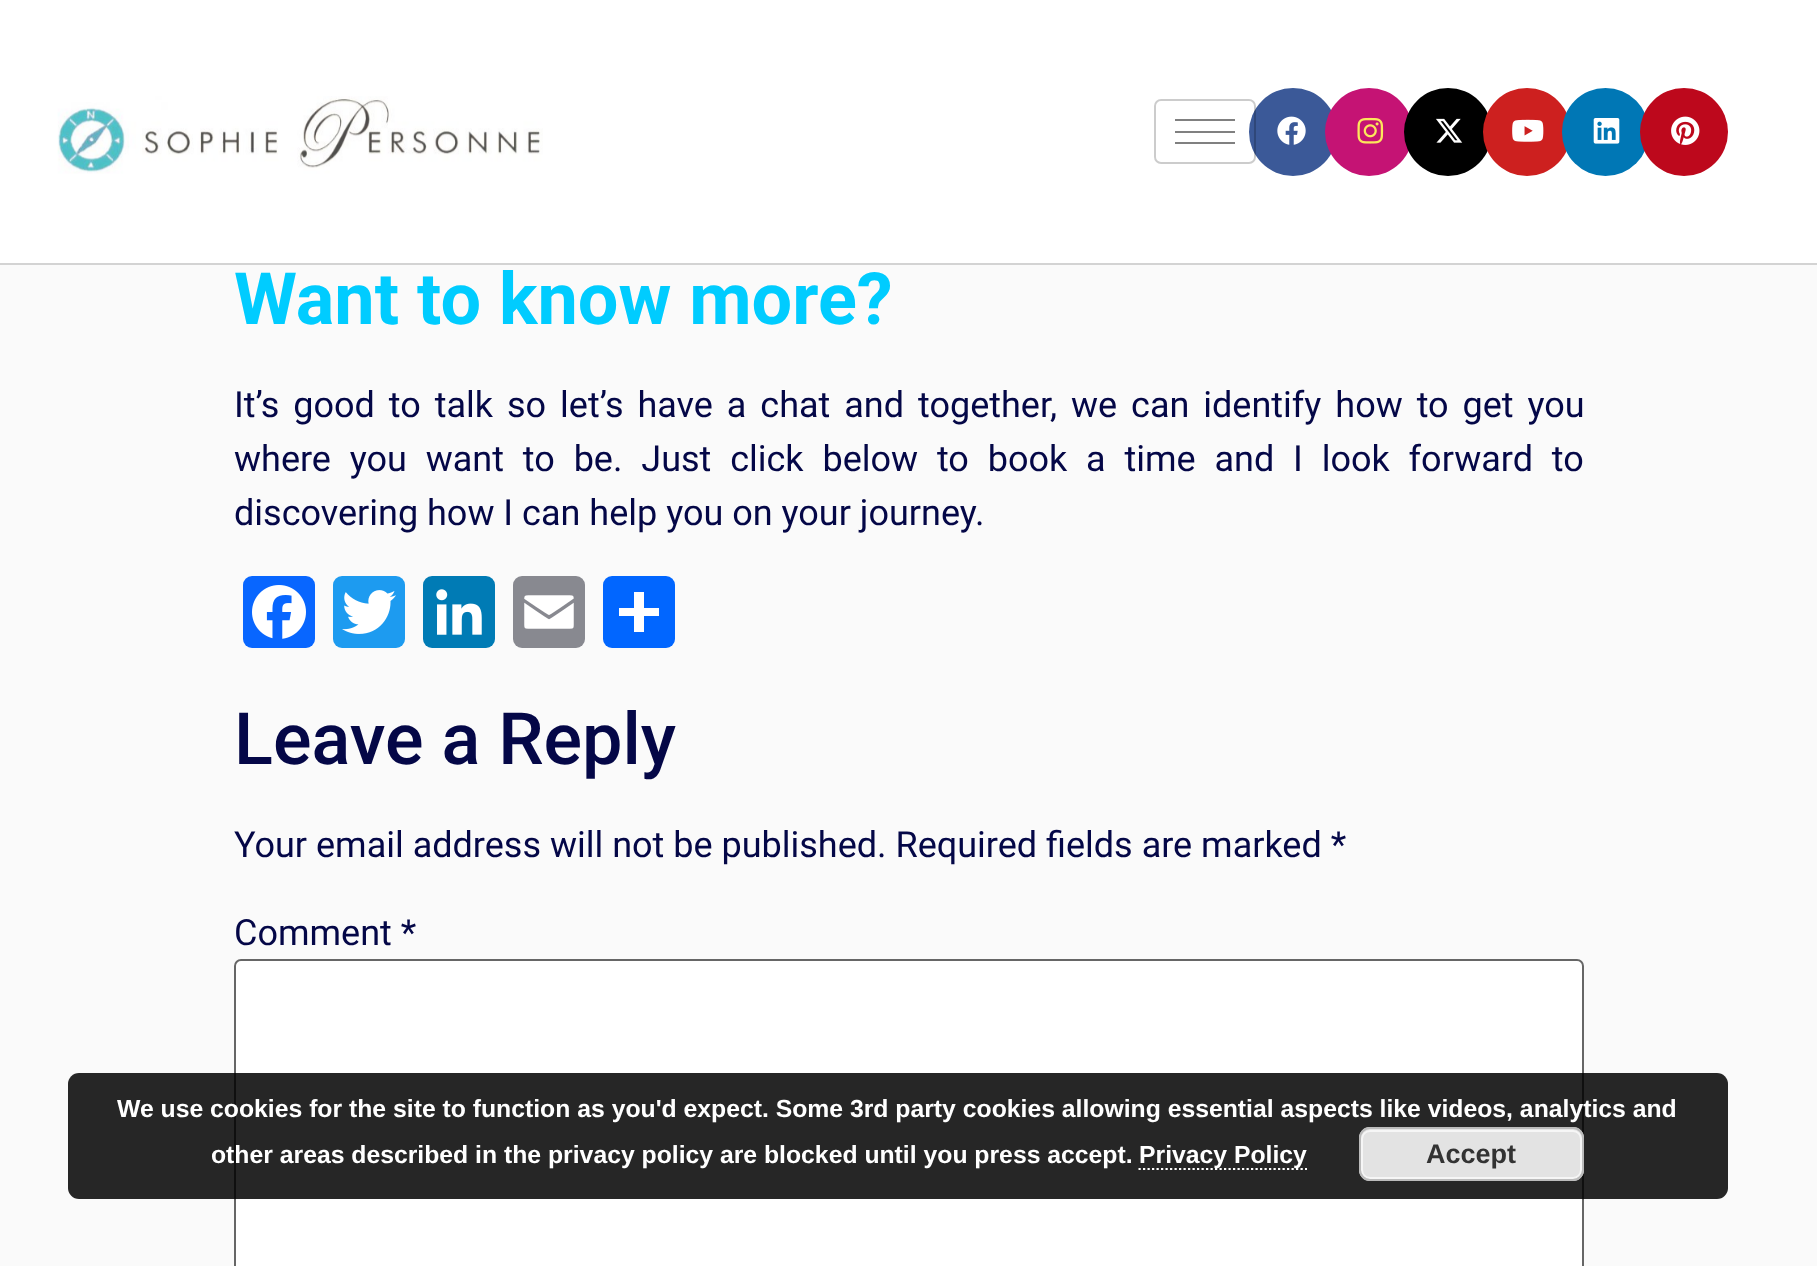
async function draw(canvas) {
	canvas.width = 1817;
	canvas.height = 1266;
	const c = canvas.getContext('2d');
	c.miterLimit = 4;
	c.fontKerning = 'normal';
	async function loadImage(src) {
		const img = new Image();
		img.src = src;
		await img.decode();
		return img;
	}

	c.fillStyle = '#fafafa';
	c.fillRect(0, 0, 1817, 1266);
	c.fillStyle = '#fff';
	c.fillRect(0, 0, 1817, 263);
	c.fillStyle = '#d3d3d3';
	c.fillRect(0, 263, 1817, 2);
	c.drawImage(await loadImage('img1.png'), 57, 96, 486, 78);
	c.fillStyle = '#3b5998';
	c.beginPath();
	c.arc(1293, 132, 44, 0, 2 * Math.PI);
	c.fill();
	c.beginPath();
	c.roundRect(1155, 100, 100, 63, 6);
	c.strokeStyle = '#00000033';
	c.lineWidth = 2;
	c.stroke();
	for (const [x, y, w, h, color] of [
		[1175, 119, 60, 2, '#808080'],
		[1175, 131, 60, 2, '#808080'],
		[1175, 142, 60, 2, '#808080'],
	]) {
		c.fillStyle = color;
		c.fillRect(x, y, w, h);
	}
	c.drawImage(await loadImage('img2.png'), 1277, 116, 29, 29);
	c.fillStyle = '#c51374';
	c.beginPath();
	c.arc(1369, 132, 44, 0, 2 * Math.PI);
	c.fill();
	c.drawImage(await loadImage('img3.png'), 1357, 117, 27, 27);
	c.fillStyle = '#000';
	c.beginPath();
	c.arc(1448, 132, 44, 0, 2 * Math.PI);
	c.fill();
	c.drawImage(await loadImage('img4.png'), 1436, 118, 27, 25);
	c.fillStyle = '#cd201f';
	c.beginPath();
	c.arc(1527, 132, 44, 0, 2 * Math.PI);
	c.fill();
	c.drawImage(await loadImage('img5.png'), 1512, 119, 32, 23);
	c.fillStyle = '#0077b5';
	c.beginPath();
	c.roundRect(1562, 88, 87, 88, 43.5);
	c.fill();
	c.drawImage(await loadImage('img6.png'), 1593, 118, 27, 26);
	c.fillStyle = '#bd081c';
	c.beginPath();
	c.arc(1684, 132, 44, 0, 2 * Math.PI);
	c.fill();
	c.drawImage(await loadImage('img7.png'), 1671, 116, 29, 29);
	c.font = 'bold 72px Roboto';
	c.fillStyle = '#0cf';
	c.fillText('Want to know more?', 234, 324);
	c.wordSpacing = '5px';
	c.font = '36px Roboto';
	c.fillStyle = '#040747';
	c.fillText('It’s good to talk so let’s have a chat and together, we can identify how to get you', 234, 417);
	c.wordSpacing = '9.9px';
	c.fillText('where you want to be. Just click below to book a time and I look forward to', 234, 471);
	c.wordSpacing = '0px';
	c.fillText('discovering how I can help you on your journey.', 234, 525);
	c.fillStyle = '#0866ff';
	c.beginPath();
	c.roundRect(243, 576, 72, 72, 9);
	c.fill();
	c.drawImage(await loadImage('img8.png'), 252, 585, 54, 54);
	c.fillStyle = '#1d9bf0';
	c.beginPath();
	c.roundRect(333, 576, 72, 72, 9);
	c.fill();
	c.drawImage(await loadImage('img9.png'), 342, 590, 54, 44);
	c.fillStyle = '#007bb5';
	c.beginPath();
	c.roundRect(423, 576, 72, 72, 9);
	c.fill();
	c.drawImage(await loadImage('img10.png'), 436, 589, 46, 46);
	c.fillStyle = '#888990';
	c.beginPath();
	c.roundRect(513, 576, 72, 72, 9);
	c.fill();
	c.drawImage(await loadImage('img11.png'), 524, 595, 50, 34);
	c.fillStyle = '#0166ff';
	c.beginPath();
	c.roundRect(603, 576, 72, 72, 9);
	c.fill();
	c.fillStyle = '#fff';
	c.fillRect(634, 592, 10, 40);
	c.fillRect(619, 608, 40, 8);
	c.font = '500 72px Roboto';
	c.fillStyle = '#040747';
	c.fillText('Leave a Reply', 234, 764);
	c.font = '36px Roboto';
	c.fillText('Your email address will not be published. Required fields are marked *', 234, 857);
	c.fillText('Comment *', 234, 945);
	c.fillStyle = '#fff';
	c.beginPath();
	c.roundRect(235, 960, 1348, 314, 6);
	c.fill();
	c.strokeStyle = '#666';
	c.stroke();
	c.fillStyle = '#000000d9';
	c.beginPath();
	c.roundRect(68, 1073, 1660, 126, 11);
	c.fill();
	c.font = 'bold 24.75px Liberation Sans';
	c.fillStyle = '#fff';
	c.fillText('We use cookies for the site to function as you\'d expect. Some 3rd party cookies allowing essential aspects like videos, analytics and', 117, 1117);
	c.fillText('other areas described in the privacy policy are blocked until you press accept.', 211, 1163);
	c.beginPath();
	c.moveTo(1138.5, 1169);
	c.lineTo(1307, 1169);
	c.strokeStyle = '#fff';
	c.lineWidth = 2.2;
	c.setLineDash([2.25, 2.25]);
	c.stroke();
	c.fillText('Privacy Policy', 1139, 1163);
	c.fillStyle = '#e3e3e3';
	c.beginPath();
	c.roundRect(1359, 1127, 225, 54, 11);
	c.fill();
	c.beginPath();
	c.roundRect(1362, 1131, 219, 47, 8);
	c.strokeStyle = '#f6f6f6';
	c.lineWidth = 2;
	c.setLineDash([]);
	c.stroke();
	c.beginPath();
	c.roundRect(1360, 1128, 223, 52, 10);
	c.strokeStyle = '#bbb';
	c.stroke();
	c.font = 'bold 27px Liberation Sans';
	c.fillStyle = '#333';
	c.fillText('Accept', 1426, 1163);
}

draw(document.querySelector('canvas'));
